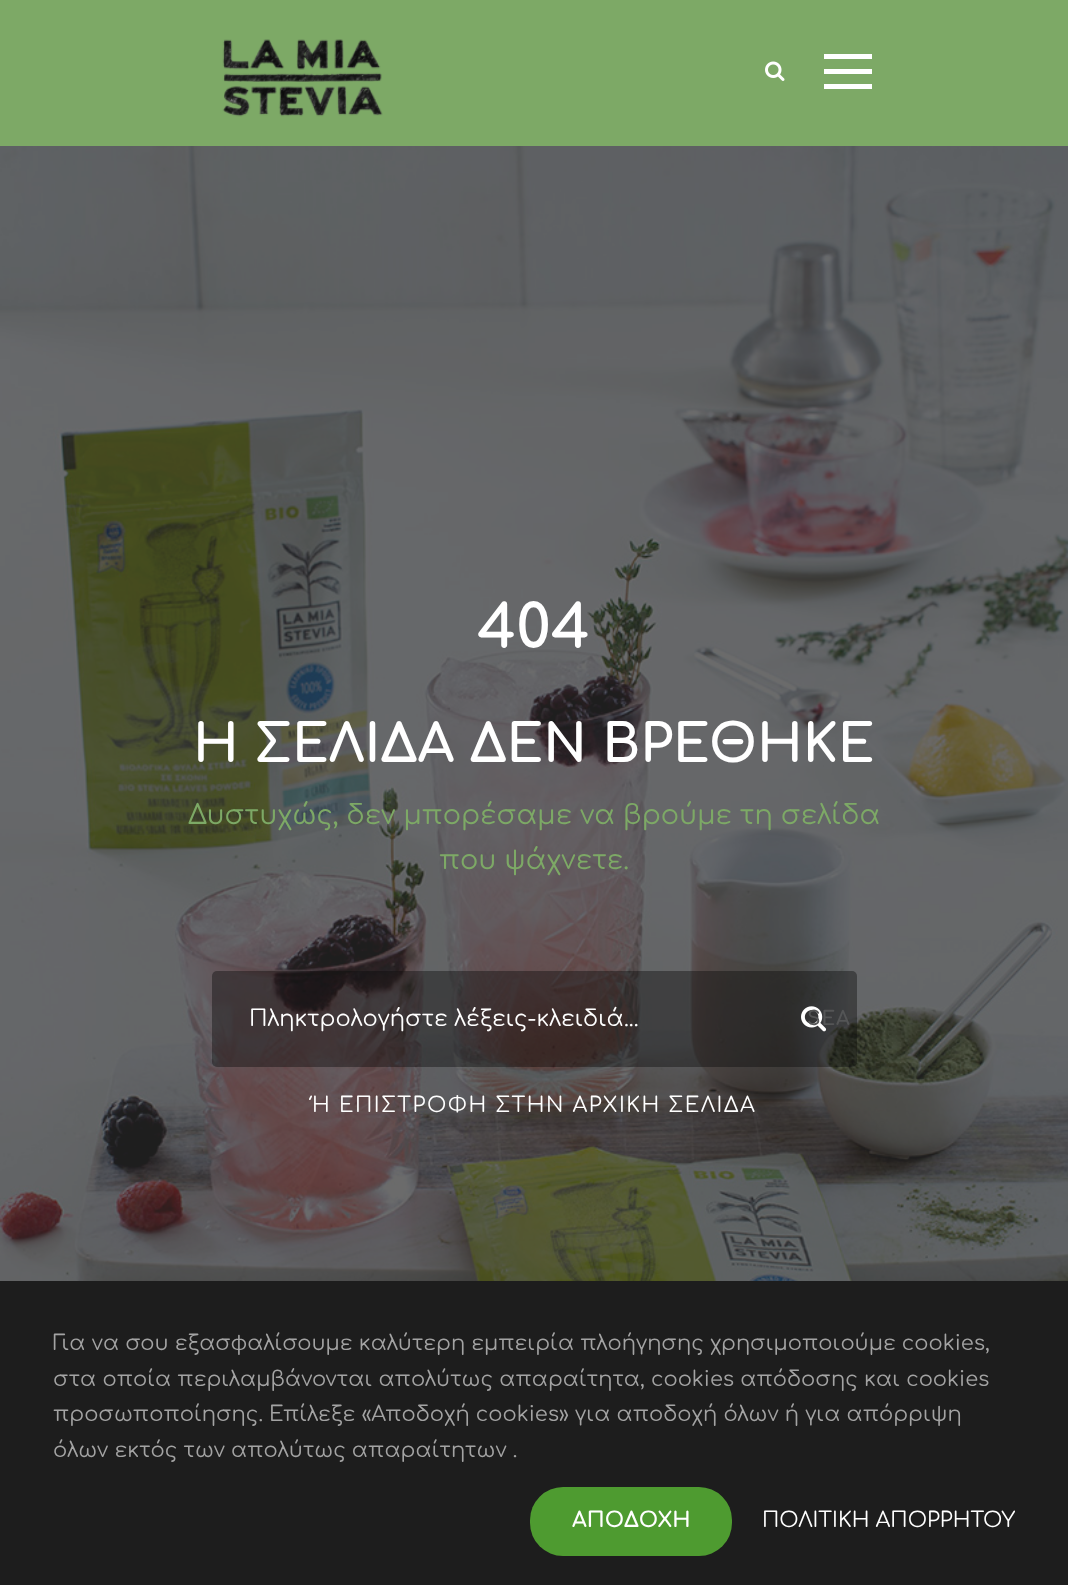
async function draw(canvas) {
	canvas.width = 1068;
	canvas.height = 1585;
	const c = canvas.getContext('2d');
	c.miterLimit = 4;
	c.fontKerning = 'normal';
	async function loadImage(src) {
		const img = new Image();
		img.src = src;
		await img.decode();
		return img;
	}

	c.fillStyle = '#2b2b2b';
	c.fillRect(0, 0, 1068, 1585);
	c.fillStyle = '#7da966';
	c.fillRect(0, 0, 1068, 146);
	c.drawImage(await loadImage('img1.png'), 222, 39, 161, 78);
	c.drawImage(await loadImage('img2.png'), 765, 61, 20, 20);
	for (const [x, y, w, h, color] of [
		[824, 54, 48, 5, '#fff'],
		[824, 69, 48, 5, '#fff'],
		[824, 84, 48, 5, '#fff'],
	]) {
		c.fillStyle = color;
		c.fillRect(x, y, w, h);
	}
	c.drawImage(await loadImage('img3.png'), 0, 146, 1068, 1135);
	c.font = 'bold 60px Comfortaa';
	c.fillText('404', 477, 648);
	c.font = 'bold 52.5px Comfortaa';
	c.fillText('Η ΣΕΛΙΔΑ ΔΕΝ ΒΡΕΘΗΚΕ', 193, 762);
	c.font = '27px Comfortaa';
	c.fillStyle = '#7da966';
	c.fillText('Δυστυχώς, δεν μπορέσαμε να βρούμε τη σελίδα', 188, 824);
	c.fillText('που ψάχνετε.', 439, 869);
	c.fillStyle = '#0a0a0a66';
	c.beginPath();
	c.roundRect(212, 971, 645, 96, 5);
	c.fill();
	c.font = '22.5px Comfortaa';
	c.fillStyle = '#fff';
	c.fillText('Πληκτρολογήστε λέξεις-κλειδιά...', 249, 1026);
	c.drawImage(await loadImage('img4.png'), 801, 1006, 26, 26);
	c.letterSpacing = '1px';
	c.font = 'bold 19.5px Comfortaa';
	c.fillStyle = '#545556';
	c.fillText('SEA', 807, 1025);
	c.letterSpacing = '1.5px';
	c.font = '21px Comfortaa';
	c.fillStyle = '#fff';
	c.fillText('Ή ΕΠΙΣΤΡΟΦΗ ΣΤΗΝ ΑΡΧΙΚΗ ΣΕΛΙΔΑ', 312, 1112);
	c.fillStyle = '#1d1d1d';
	c.fillRect(0, 1281, 1068, 304);
	c.letterSpacing = '0px';
	c.fillStyle = '#a3a3a3';
	for (const [text, x, y] of [
		['Για να σου εξασφαλίσουμε καλύτερη εμπειρία πλοήγησης χρησιμοποιούμε cookies,', 53, 1350],
		['στα οποία περιλαμβάνονται απολύτως απαραίτητα, cookies απόδοσης και cookies', 53, 1386],
		['προσωποποίησης. Επίλεξε «Αποδοχή cookies» για αποδοχή όλων ή για απόρριψη', 53, 1421],
		['όλων εκτός των απολύτως απαραίτητων .', 53, 1457],
	]) {
		c.fillText(text, x, y);
	}
	c.fillStyle = '#4e9b30';
	c.beginPath();
	c.roundRect(530, 1487, 202, 69, 33);
	c.fill();
	c.font = 'bold 21px Comfortaa';
	c.fillStyle = '#fff';
	c.fillText('ΑΠΟΔΟΧΗ', 572, 1527);
	c.font = '21px Comfortaa';
	c.fillText('ΠΟΛΙΤΙΚΗ ΑΠΟΡΡΗΤΟΥ', 762, 1527);
}

draw(document.querySelector('canvas'));
